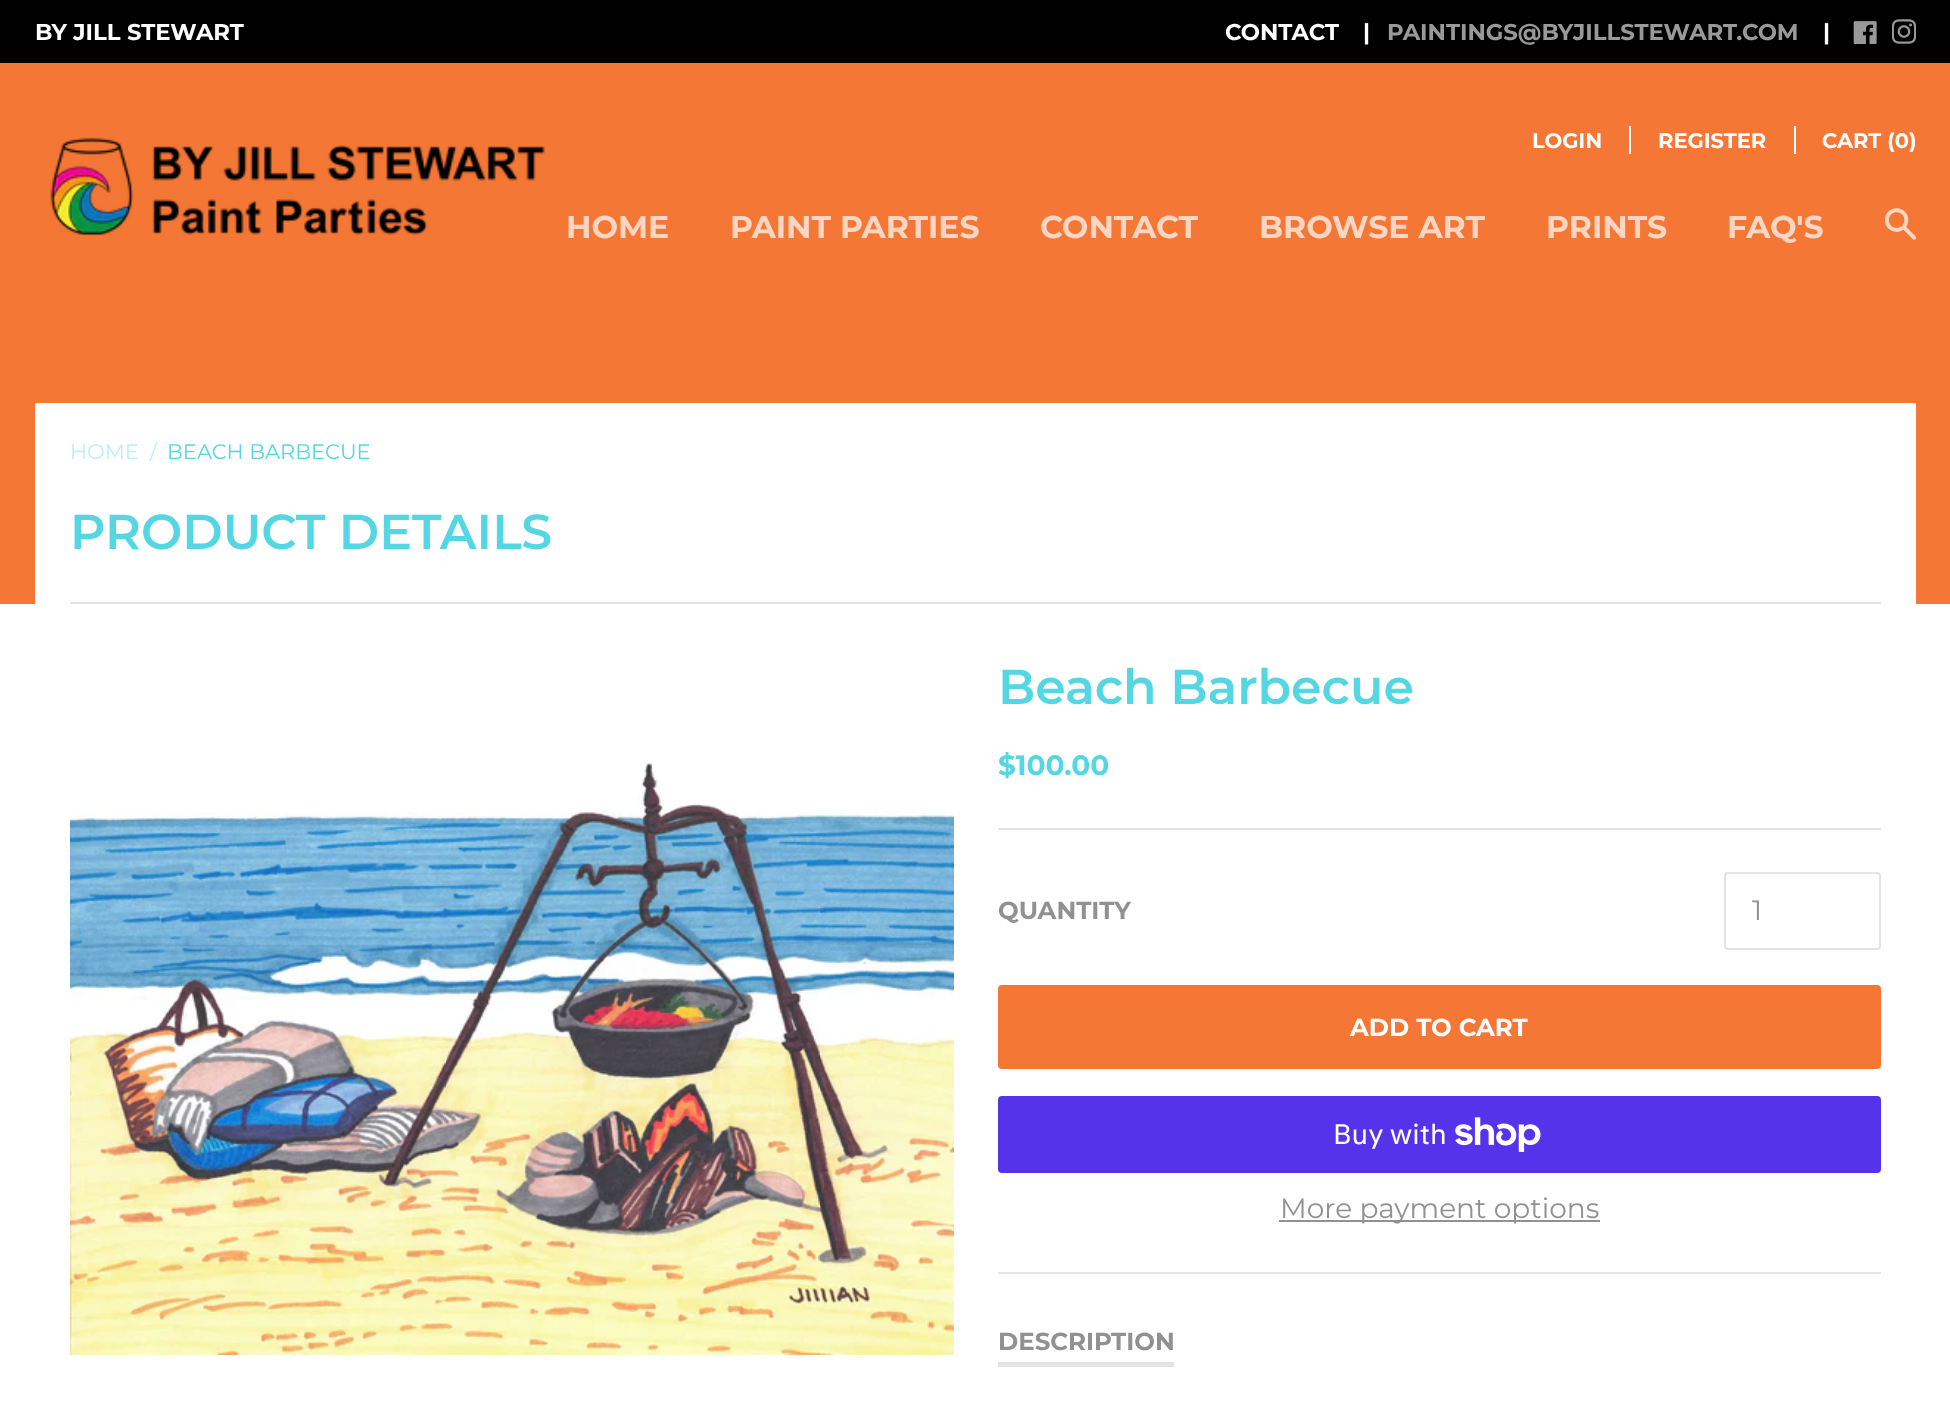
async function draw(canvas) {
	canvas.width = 1950;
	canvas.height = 1411;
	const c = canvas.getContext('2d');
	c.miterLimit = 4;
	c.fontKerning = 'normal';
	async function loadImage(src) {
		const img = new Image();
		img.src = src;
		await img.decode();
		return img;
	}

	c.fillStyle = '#fff';
	c.fillRect(0, 0, 1950, 1411);
	c.fillStyle = '#f47735';
	c.fillRect(0, 63, 1950, 541);
	c.fillStyle = '#000';
	c.fillRect(0, 0, 1950, 63);
	c.font = 'bold 22.75px Montserrat';
	c.fillStyle = '#fff';
	for (const [text, x, y] of [
		['BY JILL STEWART', 35, 40],
		['CONTACT', 1225, 40],
		['|', 1363, 40],
	]) {
		c.fillText(text, x, y);
	}
	c.fillStyle = '#999';
	c.fillText('PAINTINGS@BYJILLSTEWART.COM', 1387, 40);
	c.fillStyle = '#fff';
	c.fillText('|', 1823, 40);
	c.drawImage(await loadImage('img1.png'), 1853, 21, 24, 23);
	c.drawImage(await loadImage('img2.png'), 1892, 19, 24, 25);
	c.drawImage(await loadImage('img3.png'), 50, 137, 495, 99);
	c.font = 'bold 21px Montserrat';
	c.fillText('LOGIN', 1532, 148);
	c.fillRect(1629, 126, 2, 28);
	c.fillText('REGISTER', 1658, 148);
	c.fillRect(1794, 126, 2, 28);
	c.fillText('CART (0)', 1822, 148);
	c.font = 'bold 31.5px Montserrat';
	c.fillStyle = '#fcd6c2';
	for (const [text, x, y] of [
		['HOME', 566, 238],
		['PAINT PARTIES', 730, 238],
		['CONTACT', 1040, 238],
		['BROWSE ART', 1259, 238],
		['PRINTS', 1546, 238],
		['FAQ\'S', 1727, 238],
	]) {
		c.fillText(text, x, y);
	}
	c.drawImage(await loadImage('img4.png'), 1885, 208, 31, 32);
	c.fillStyle = '#fff';
	c.fillRect(35, 403, 1881, 201);
	c.font = '21px Montserrat';
	c.fillStyle = '#bbeff4';
	c.fillText('HOME', 70, 459);
	c.fillText('/', 150, 459);
	c.fillStyle = '#54d7e3';
	c.fillText('BEACH BARBECUE', 167, 459);
	c.fillStyle = '#e4e4e4';
	c.fillRect(70, 602, 1811, 2);
	c.font = '600 49px Montserrat';
	c.fillStyle = '#54d7e3';
	c.fillText('PRODUCT DETAILS', 70, 549);
	c.drawImage(await loadImage('img5.png'), 70, 762, 884, 593);
	c.fillStyle = '#e4e4e4';
	c.fillRect(998, 828, 883, 2);
	c.fillStyle = '#54d7e3';
	c.fillText('Beach Barbecue', 998, 704);
	c.font = 'bold 28px Montserrat';
	c.fillText('$100.00', 998, 775);
	c.font = 'bold 24.5px Montserrat';
	c.fillStyle = '#919191';
	c.fillText('QUANTITY', 998, 919);
	c.beginPath();
	c.roundRect(1725, 873, 155, 76, 3);
	c.strokeStyle = '#e4e4e4';
	c.lineWidth = 2;
	c.stroke();
	c.font = '28px Montserrat';
	c.fillText('1', 1752, 920);
	c.fillStyle = '#f47735';
	c.beginPath();
	c.roundRect(998, 985, 883, 84, 4);
	c.fill();
	c.font = 'bold 24.5px Montserrat';
	c.fillStyle = '#fff';
	c.fillText('ADD TO CART', 1350, 1036);
	c.fillStyle = '#5433eb';
	c.beginPath();
	c.roundRect(998, 1096, 883, 77, 4);
	c.fill();
	c.font = '28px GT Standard';
	c.fillStyle = '#fff';
	c.fillText('Buy with', 1333, 1144);
	c.drawImage(await loadImage('img6.png'), 1455, 1117, 86, 35);
	c.fillStyle = '#919191';
	c.fillRect(1279, 1220, 321, 2);
	c.font = '28px Montserrat';
	c.fillText('More payment options', 1280, 1218);
	c.fillStyle = '#e4e4e4';
	c.fillRect(998, 1272, 883, 2);
	c.fillRect(998, 1362, 176, 5);
	c.font = 'bold 24.5px Montserrat';
	c.fillStyle = '#919191';
	c.fillText('DESCRIPTION', 998, 1350);
}

draw(document.querySelector('canvas'));
